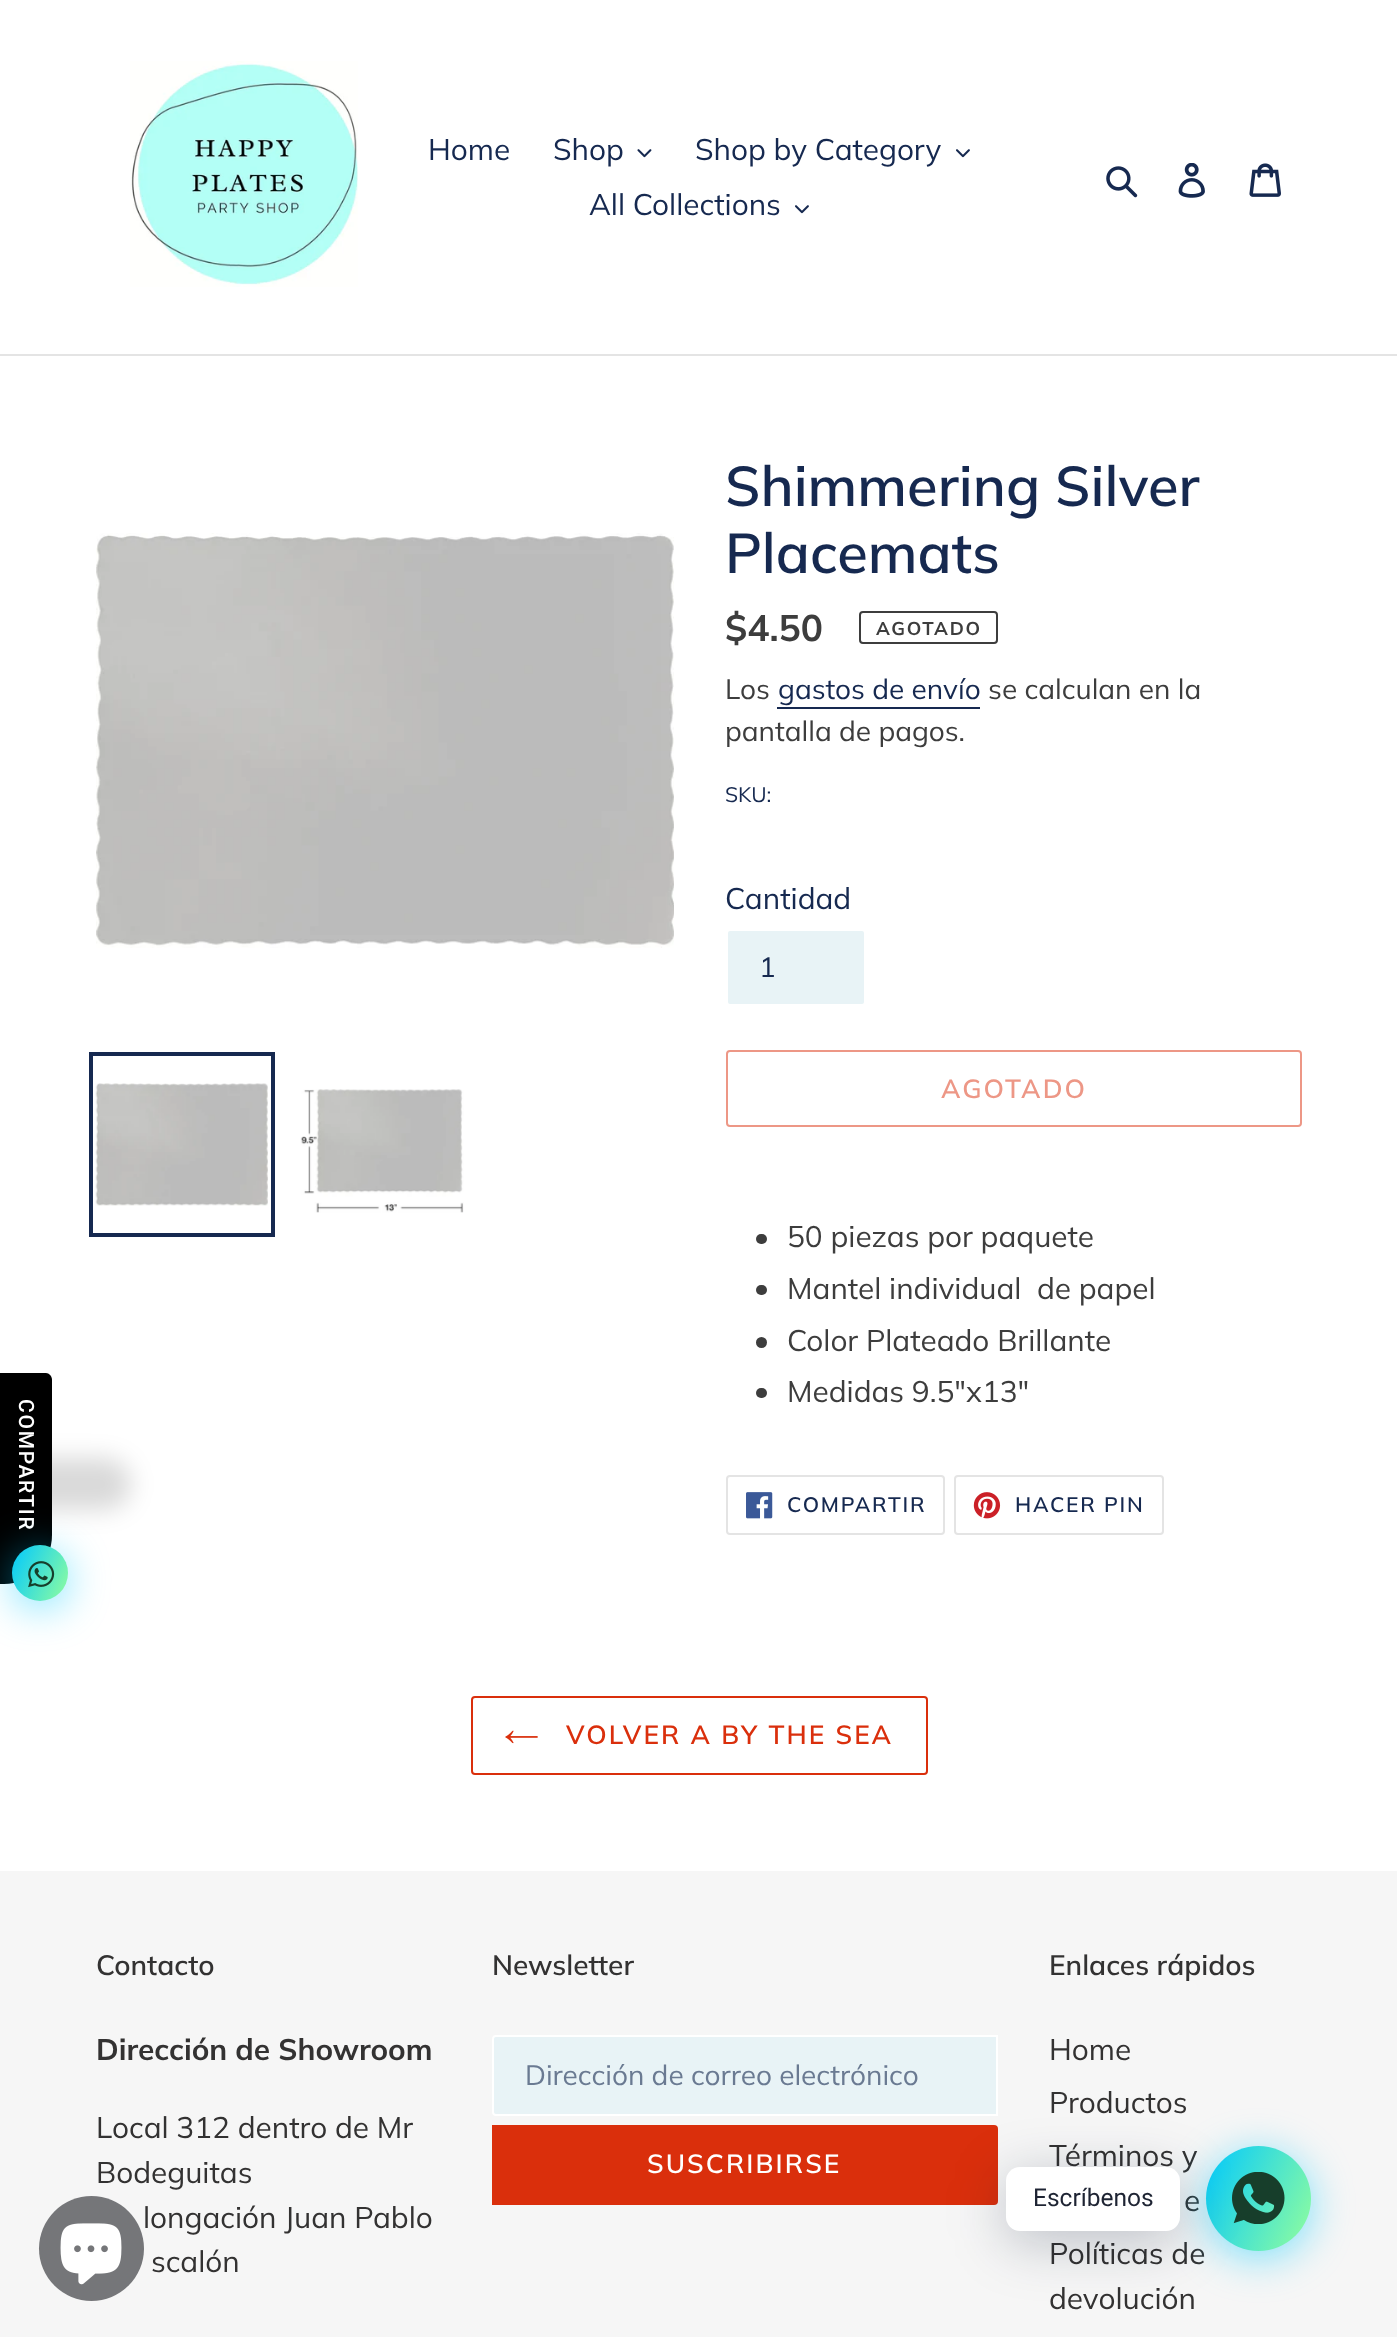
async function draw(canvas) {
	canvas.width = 1397;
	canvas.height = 2337;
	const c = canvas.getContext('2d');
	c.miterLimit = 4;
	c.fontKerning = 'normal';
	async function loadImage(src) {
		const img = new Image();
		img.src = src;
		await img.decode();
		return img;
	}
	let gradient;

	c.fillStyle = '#fff';
	c.fillRect(0, 0, 1397, 2337);
	c.fillStyle = '#e4e4e4';
	c.fillRect(0, 354, 1397, 2);
	c.drawImage(await loadImage('img1.png'), 130, 61, 228, 226);
	c.font = '29.75px Muli';
	c.fillStyle = '#162950';
	c.fillText('Home', 428, 160);
	c.fillText('Shop', 553, 160);
	c.drawImage(await loadImage('img2.png'), 637, 149, 15, 9);
	c.fillText('Shop by Category', 695, 160);
	c.drawImage(await loadImage('img3.png'), 956, 149, 14, 9);
	c.fillText('All Collections', 589, 215);
	c.drawImage(await loadImage('img3.png'), 795, 205, 14, 9);
	c.drawImage(await loadImage('img4.png'), 1106, 166, 32, 32);
	c.drawImage(await loadImage('img5.png'), 1178, 163, 27, 35);
	c.drawImage(await loadImage('img6.png'), 1249, 163, 32, 34);
	c.drawImage(await loadImage('img7.png'), 96, 533, 578, 415);
	c.strokeStyle = '#162950';
	c.lineWidth = 4;
	c.strokeRect(91, 1054, 182, 181);
	c.drawImage(await loadImage('img8.png'), 95, 1083, 173, 123);
	c.drawImage(await loadImage('img9.png'), 300, 1089, 164, 124);
	c.font = '600 56px Muli';
	c.fillText('Shimmering Silver', 725, 506);
	c.fillText('Placemats', 725, 573);
	c.font = 'bold 37px Muli';
	c.fillStyle = '#3d3d3d';
	c.fillText('$4.50', 725, 641);
	c.beginPath();
	c.roundRect(860, 612, 137, 31, 3);
	c.strokeStyle = '#3d3d3d';
	c.lineWidth = 2;
	c.stroke();
	c.letterSpacing = '1.75px';
	c.font = 'bold 18.5px Muli';
	c.fillText('AGOTADO', 876, 635);
	c.letterSpacing = '0px';
	c.font = '28px Muli';
	c.fillText('Los', 725, 699);
	c.fillStyle = '#162950';
	c.fillText('gastos de envío', 778, 699);
	c.fillRect(777, 707, 203, 2);
	c.fillStyle = '#3d3d3d';
	c.fillText('se calculan en la', 988, 699);
	c.fillText('pantalla de pagos.', 725, 741);
	c.font = '21px Muli';
	c.fillStyle = '#162950';
	c.fillText('SKU:', 725, 802);
	c.font = '29.75px Muli';
	c.fillText('Cantidad', 725, 909);
	c.fillStyle = '#e8f3f6';
	c.beginPath();
	c.roundRect(727, 930, 138, 75, 3);
	c.fill();
	c.strokeStyle = '#fff';
	c.stroke();
	c.font = '28px Muli';
	c.fillStyle = '#162950';
	c.fillText('1', 759, 977);
	c.beginPath();
	c.roundRect(727, 1051, 574, 75, 3);
	c.strokeStyle = '#ed9786';
	c.stroke();
	c.letterSpacing = '2.1px';
	c.font = '600 26.25px Muli';
	c.fillStyle = '#ed9786';
	c.fillText('AGOTADO', 941, 1098);
	c.fillStyle = '#3d3d3d';
	c.beginPath();
	c.roundRect(756, 1234, 11, 10, 5);
	c.fill();
	c.letterSpacing = '0px';
	c.font = '29.75px Muli';
	c.fillText('50 piezas por paquete', 787, 1247);
	c.beginPath();
	c.roundRect(756, 1285, 11, 10, 5);
	c.fill();
	c.fillText('Mantel individual  de papel', 787, 1299);
	c.beginPath();
	c.arc(761.5, 1342.5, 5.5, 0, 2 * Math.PI);
	c.fill();
	c.fillText('Color Plateado Brillante', 787, 1351);
	c.beginPath();
	c.roundRect(756, 1388, 11, 10, 5);
	c.fill();
	c.fillText('Medidas 9.5"x13"', 787, 1402);
	c.beginPath();
	c.roundRect(727, 1476, 217, 58, 3);
	c.strokeStyle = '#e4e4e4';
	c.stroke();
	c.drawImage(await loadImage('img10.png'), 746, 1492, 27, 27);
	c.letterSpacing = '1.75px';
	c.font = '600 21px Muli';
	c.fillStyle = '#162950';
	c.fillText('COMPARTIR', 787, 1512);
	c.beginPath();
	c.roundRect(955, 1476, 208, 58, 3);
	c.stroke();
	c.drawImage(await loadImage('img11.png'), 973, 1492, 28, 27);
	c.fillText('HACER PIN', 1015, 1512);
	c.beginPath();
	c.roundRect(472, 1697, 455, 77, 3);
	c.strokeStyle = '#da2f0c';
	c.stroke();
	c.drawImage(await loadImage('img12.png'), 505, 1730, 33, 14);
	c.letterSpacing = '2.1px';
	c.font = '600 26.25px Muli';
	c.fillStyle = '#da2f0c';
	c.fillText('VOLVER A BY THE SEA', 566, 1744);
	c.fillStyle = '#f6f6f6';
	c.fillRect(0, 1871, 1397, 466);
	c.letterSpacing = '0px';
	c.font = '600 28px Muli';
	c.fillStyle = '#333232';
	c.fillText('Contacto', 96, 1975);
	c.font = 'bold 29.75px Muli';
	c.fillText('Dirección de Showroom', 96, 2060);
	c.font = '29.75px Muli';
	for (const [text, x, y] of [
		['Local 312 dentro de Mr', 96, 2138],
		['Bodeguitas', 96, 2183],
		['longación Juan Pablo', 143, 2228],
		['scalón', 151, 2272],
	]) {
		c.fillText(text, x, y);
	}
	c.font = '600 28px Muli';
	c.fillText('Newsletter', 492, 1975);
	c.fillStyle = '#e8f3f6';
	c.beginPath();
	c.roundRect(493, 2036, 504, 79, [3, 0, 0, 3]);
	c.fill();
	c.strokeStyle = '#fff';
	c.stroke();
	c.font = '28px Muli';
	c.fillStyle = '#6a7a92';
	c.fillText('Dirección de correo electrónico', 525, 2085);
	c.fillStyle = '#da2f0c';
	c.beginPath();
	c.roundRect(492, 2125, 506, 80, [0, 4, 4, 0]);
	c.fill();
	c.letterSpacing = '2.1px';
	c.font = '600 26.25px Muli';
	c.fillStyle = '#fff';
	c.fillText('SUSCRIBIRSE', 647, 2173);
	c.letterSpacing = '0px';
	c.font = '600 28px Muli';
	c.fillStyle = '#333232';
	c.fillText('Enlaces rápidos', 1049, 1975);
	c.font = '29.75px Muli';
	for (const [text, x, y] of [
		['Home', 1049, 2060],
		['Productos', 1049, 2113],
		['Términos y', 1049, 2166],
		['e', 1184, 2211],
		['Políticas de', 1049, 2264],
		['devolución', 1049, 2309],
	]) {
		c.fillText(text, x, y);
	}
	c.fillStyle = '#00000026';
	c.filter = 'blur(12px)';
	c.beginPath();
	c.roundRect(-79, 1458, 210, 52, 49);
	c.fill();
	c.filter = 'none';
	c.fillStyle = '#000';
	c.beginPath();
	c.moveTo(0, 1584);
	c.lineTo(0, 1373);
	c.lineTo(46, 1373);
	c.bezierCurveTo(49, 1373, 52, 1376, 52, 1380);
	c.lineTo(52, 1535);
	c.bezierCurveTo(52, 1562, 31, 1584, 4, 1584);
	c.closePath();
	c.fill();
	c.letterSpacing = '1.75px';
	c.font = '500 21px Roboto';
	c.fillStyle = '#fff';
	c.save();
	c.translate(19, 1399);
	c.rotate(90 * Math.PI / 180);
	c.fillText('COMPARTIR', 0, 0);
	c.restore();
	c.fillStyle = '#00c9ff80';
	c.filter = 'blur(21px)';
	c.beginPath();
	c.roundRect(12, 1552, 56, 56, 28);
	c.fill();
	c.filter = 'none';
	gradient = c.createLinearGradient(6.5, 1558, 74, 1589);
	gradient.addColorStop(0, '#00c9ff');
	gradient.addColorStop(1, '#92fe9d');
	c.fillStyle = gradient;
	c.beginPath();
	c.arc(40, 1573, 28, 0, 2 * Math.PI);
	c.fill();
	c.drawImage(await loadImage('img13.png'), 28, 1561, 27, 27);
	c.fillStyle = '#00c9ff80';
	c.filter = 'blur(21px)';
	c.beginPath();
	c.roundRect(1206, 2153, 105, 105, 52.5);
	c.fill();
	c.filter = 'none';
	gradient = c.createLinearGradient(1195, 2169, 1321, 2227);
	gradient.addColorStop(0, '#00c9ff');
	gradient.addColorStop(1, '#92fe9d');
	c.fillStyle = gradient;
	c.beginPath();
	c.arc(1258.5, 2198.5, 52.5, 0, 2 * Math.PI);
	c.fill();
	c.fillStyle = '#00122e3d';
	c.filter = 'blur(28px)';
	c.beginPath();
	c.roundRect(1006, 2177, 174, 65, 14);
	c.fill();
	c.filter = 'none';
	c.fillStyle = '#fff';
	c.beginPath();
	c.roundRect(1006, 2167, 174, 64, 14);
	c.fill();
	c.letterSpacing = '0px';
	c.font = '24.5px Roboto';
	c.fillStyle = '#1e2433';
	c.fillText('Escríbenos', 1033, 2206);
	c.drawImage(await loadImage('img14.png'), 1232, 2172, 53, 52);
	c.fillStyle = '#757679';
	c.beginPath();
	c.arc(91.5, 2248.5, 52.5, 0, 2 * Math.PI);
	c.fill();
	c.drawImage(await loadImage('img15.png'), 60, 2223, 62, 62);
}

draw(document.querySelector('canvas'));
